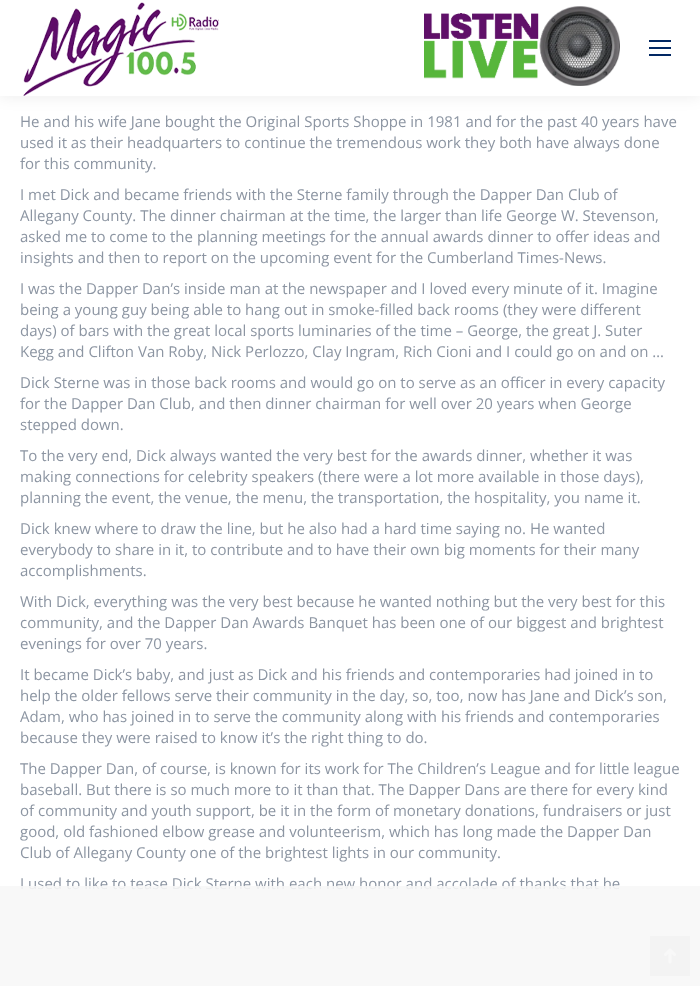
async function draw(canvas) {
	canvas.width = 700;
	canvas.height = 986;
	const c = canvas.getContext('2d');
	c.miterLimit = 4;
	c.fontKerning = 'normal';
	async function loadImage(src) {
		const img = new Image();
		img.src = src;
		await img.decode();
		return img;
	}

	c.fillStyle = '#fff';
	c.fillRect(0, 0, 700, 986);
	c.fillStyle = '#00000012';
	c.filter = 'blur(7.5px)';
	c.beginPath();
	c.rect(-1, -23, 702, 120);
	c.fill();
	c.filter = 'none';
	c.fillStyle = '#fff';
	c.fillRect(0, 0, 700, 96);
	c.drawImage(await loadImage('img1.png'), 23, 2, 196, 94);
	c.drawImage(await loadImage('img2.png'), 424, 6, 196, 80);
	for (const [x, y, w, h, color] of [
		[649, 40, 22, 2, '#022863'],
		[649, 47, 22, 2, '#022863'],
		[649, 54, 22, 2, '#022863'],
	]) {
		c.fillStyle = color;
		c.fillRect(x, y, w, h);
	}
	c.font = '15px Open Sans';
	c.fillStyle = '#8c95a2';
	for (const [text, x, y] of [
		['He and his wife Jane bought the Original Sports Shoppe in 1981 and for the past 40 years have', 20, 127],
		['used it as their headquarters to continue the tremendous work they both have always done', 20, 148],
		['for this community.', 20, 169],
		['I met Dick and became friends with the Sterne family through the Dapper Dan Club of', 20, 200],
		['Allegany County. The dinner chairman at the time, the larger than life George W. Stevenson,', 20, 221],
		['asked me to come to the planning meetings for the annual awards dinner to offer ideas and', 20, 242],
		['insights and then to report on the upcoming event for the Cumberland Times-News.', 20, 263],
		['I was the Dapper Dan’s inside man at the newspaper and I loved every minute of it. Imagine', 20, 294],
		['being a young guy being able to hang out in smoke-filled back rooms (they were different', 20, 315],
		['days) of bars with the great local sports luminaries of the time – George, the great J. Suter', 20, 336],
		['Kegg and Clifton Van Roby, Nick Perlozzo, Clay Ingram, Rich Cioni and I could go on and on …', 20, 357],
		['Dick Sterne was in those back rooms and would go on to serve as an officer in every capacity', 20, 388],
		['for the Dapper Dan Club, and then dinner chairman for well over 20 years when George', 20, 409],
		['stepped down.', 20, 430],
		['To the very end, Dick always wanted the very best for the awards dinner, whether it was', 20, 461],
		['making connections for celebrity speakers (there were a lot more available in those days),', 20, 482],
		['planning the event, the venue, the menu, the transportation, the hospitality, you name it.', 20, 503],
		['Dick knew where to draw the line, but he also had a hard time saying no. He wanted', 20, 534],
		['everybody to share in it, to contribute and to have their own big moments for their many', 20, 555],
		['accomplishments.', 20, 576],
		['With Dick, everything was the very best because he wanted nothing but the very best for this', 20, 607],
		['community, and the Dapper Dan Awards Banquet has been one of our biggest and brightest', 20, 628],
		['evenings for over 70 years.', 20, 649],
		['It became Dick’s baby, and just as Dick and his friends and contemporaries had joined in to', 20, 680],
		['help the older fellows serve their community in the day, so, too, now has Jane and Dick’s son,', 20, 701],
		['Adam, who has joined in to serve the community along with his friends and contemporaries', 20, 722],
		['because they were raised to know it’s the right thing to do.', 20, 743],
		['The Dapper Dan, of course, is known for its work for The Children’s League and for little league', 20, 774],
		['baseball. But there is so much more to it than that. The Dapper Dans are there for every kind', 20, 795],
		['of community and youth support, be it in the form of monetary donations, fundraisers or just', 20, 816],
		['good, old fashioned elbow grease and volunteerism, which has long made the Dapper Dan', 20, 837],
		['Club of Allegany County one of the brightest lights in our community.', 20, 858],
		['I used to like to tease Dick Sterne with each new honor and accolade of thanks that he', 20, 889],
	]) {
		c.fillText(text, x, y);
	}
	c.fillStyle = '#00000033';
	c.fillRect(650, 936, 40, 40);
	c.drawImage(await loadImage('img3.png'), 664, 948, 12, 16);
	c.fillStyle = '#f7f7f7e6';
	c.fillRect(0, 886, 700, 100);
}

draw(document.querySelector('canvas'));
